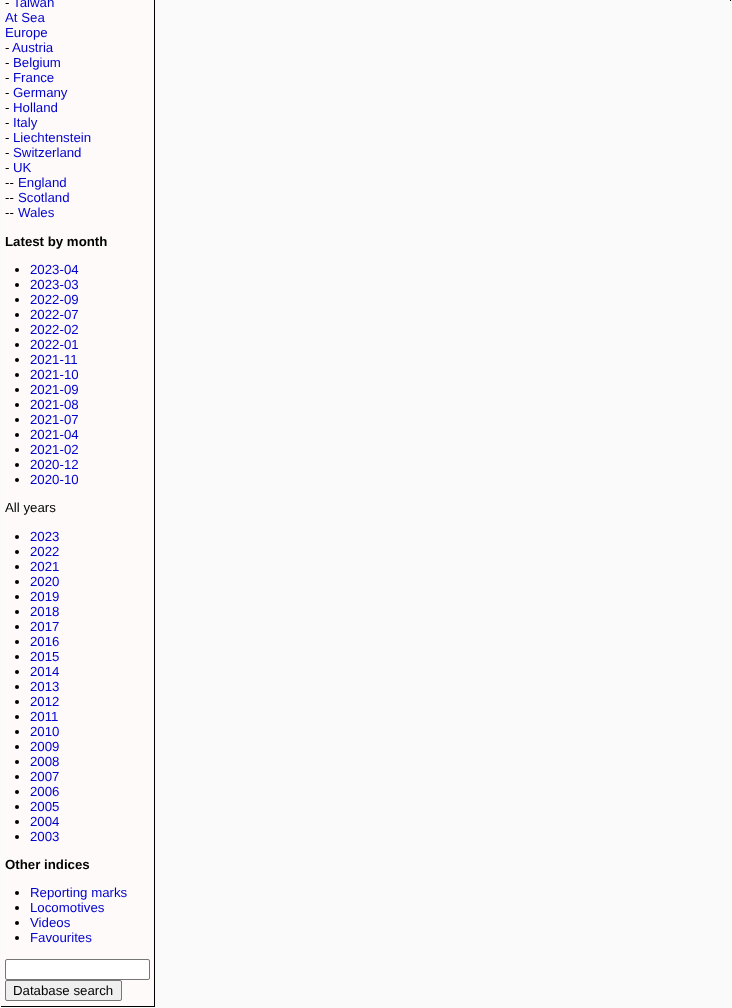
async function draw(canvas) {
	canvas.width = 732;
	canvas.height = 1008;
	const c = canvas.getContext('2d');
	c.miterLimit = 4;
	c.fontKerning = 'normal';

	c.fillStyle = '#fafafa';
	c.fillRect(0, 0, 732, 1008);
	for (const [x, y, w, h, color] of [
		[1, 0, 153, 1006, '#fffafa'],
		[154, 0, 1, 1007, '#000'],
		[1, 1006, 154, 1, '#000'],
	]) {
		c.fillStyle = color;
		c.fillRect(x, y, w, h);
	}
	c.font = '13.25px Liberation Sans';
	c.fillText('-', 5, 7);
	c.fillStyle = '#0000cd';
	for (const [text, x, y] of [
		['Taiwan', 13, 7],
		['At Sea', 5, 22],
		['Europe', 5, 37],
	]) {
		c.fillText(text, x, y);
	}
	c.fillStyle = '#000';
	c.fillText('-', 5, 52);
	c.fillStyle = '#0000cd';
	c.fillText('Austria', 12, 52);
	c.fillStyle = '#000';
	c.fillText('-', 5, 67);
	c.fillStyle = '#0000cd';
	c.fillText('Belgium', 13, 67);
	c.fillStyle = '#000';
	c.fillText('-', 5, 82);
	c.fillStyle = '#0000cd';
	c.fillText('France', 13, 82);
	c.fillStyle = '#000';
	c.fillText('-', 5, 97);
	c.fillStyle = '#0000cd';
	c.fillText('Germany', 13, 97);
	c.fillStyle = '#000';
	c.fillText('-', 5, 112);
	c.fillStyle = '#0000cd';
	c.fillText('Holland', 13, 112);
	c.fillStyle = '#000';
	c.fillText('-', 5, 127);
	c.fillStyle = '#0000cd';
	c.fillText('Italy', 13, 127);
	c.fillStyle = '#000';
	c.fillText('-', 5, 142);
	c.fillStyle = '#0000cd';
	c.fillText('Liechtenstein', 13, 142);
	c.fillStyle = '#000';
	c.fillText('-', 5, 157);
	c.fillStyle = '#0000cd';
	c.fillText('Switzerland', 13, 157);
	c.fillStyle = '#000';
	c.fillText('-', 5, 172);
	c.fillStyle = '#0000cd';
	c.fillText('UK', 13, 172);
	c.fillStyle = '#000';
	c.fillText('--', 5, 187);
	c.fillStyle = '#0000cd';
	c.fillText('England', 18, 187);
	c.fillStyle = '#000';
	c.fillText('--', 5, 202);
	c.fillStyle = '#0000cd';
	c.fillText('Scotland', 18, 202);
	c.fillStyle = '#000';
	c.fillText('--', 5, 217);
	c.fillStyle = '#0000cd';
	c.fillText('Wales', 18, 217);
	c.font = 'bold 13.25px Liberation Sans';
	c.fillStyle = '#000';
	c.fillText('Latest by month', 5, 246);
	c.beginPath();
	c.arc(17, 270, 2, 0, 2 * Math.PI);
	c.fill();
	c.font = '13.25px Liberation Sans';
	c.fillStyle = '#0000cd';
	c.fillText('2023-04', 30, 274);
	c.fillStyle = '#000';
	c.beginPath();
	c.arc(17, 285, 2, 0, 2 * Math.PI);
	c.fill();
	c.fillStyle = '#0000cd';
	c.fillText('2023-03', 30, 289);
	c.fillStyle = '#000';
	c.beginPath();
	c.arc(17, 300, 2, 0, 2 * Math.PI);
	c.fill();
	c.fillStyle = '#0000cd';
	c.fillText('2022-09', 30, 304);
	c.fillStyle = '#000';
	c.beginPath();
	c.arc(17, 315, 2, 0, 2 * Math.PI);
	c.fill();
	c.fillStyle = '#0000cd';
	c.fillText('2022-07', 30, 319);
	c.fillStyle = '#000';
	c.beginPath();
	c.arc(17, 330, 2, 0, 2 * Math.PI);
	c.fill();
	c.fillStyle = '#0000cd';
	c.fillText('2022-02', 30, 334);
	c.fillStyle = '#000';
	c.beginPath();
	c.arc(17, 345, 2, 0, 2 * Math.PI);
	c.fill();
	c.fillStyle = '#0000cd';
	c.fillText('2022-01', 30, 349);
	c.fillStyle = '#000';
	c.beginPath();
	c.arc(17, 360, 2, 0, 2 * Math.PI);
	c.fill();
	c.fillStyle = '#0000cd';
	c.fillText('2021-11', 30, 364);
	c.fillStyle = '#000';
	c.beginPath();
	c.arc(17, 375, 2, 0, 2 * Math.PI);
	c.fill();
	c.fillStyle = '#0000cd';
	c.fillText('2021-10', 30, 379);
	c.fillStyle = '#000';
	c.beginPath();
	c.arc(17, 390, 2, 0, 2 * Math.PI);
	c.fill();
	c.fillStyle = '#0000cd';
	c.fillText('2021-09', 30, 394);
	c.fillStyle = '#000';
	c.beginPath();
	c.arc(17, 405, 2, 0, 2 * Math.PI);
	c.fill();
	c.fillStyle = '#0000cd';
	c.fillText('2021-08', 30, 409);
	c.fillStyle = '#000';
	c.beginPath();
	c.arc(17, 420, 2, 0, 2 * Math.PI);
	c.fill();
	c.fillStyle = '#0000cd';
	c.fillText('2021-07', 30, 424);
	c.fillStyle = '#000';
	c.beginPath();
	c.arc(17, 435, 2, 0, 2 * Math.PI);
	c.fill();
	c.fillStyle = '#0000cd';
	c.fillText('2021-04', 30, 439);
	c.fillStyle = '#000';
	c.beginPath();
	c.arc(17, 450, 2, 0, 2 * Math.PI);
	c.fill();
	c.fillStyle = '#0000cd';
	c.fillText('2021-02', 30, 454);
	c.fillStyle = '#000';
	c.beginPath();
	c.arc(17, 465, 2, 0, 2 * Math.PI);
	c.fill();
	c.fillStyle = '#0000cd';
	c.fillText('2020-12', 30, 469);
	c.fillStyle = '#000';
	c.beginPath();
	c.arc(17, 480, 2, 0, 2 * Math.PI);
	c.fill();
	c.fillStyle = '#0000cd';
	c.fillText('2020-10', 30, 484);
	c.fillStyle = '#000';
	c.fillText('All years', 5, 512);
	c.beginPath();
	c.arc(17, 537, 2, 0, 2 * Math.PI);
	c.fill();
	c.fillStyle = '#0000cd';
	c.fillText('2023', 30, 541);
	c.fillStyle = '#000';
	c.beginPath();
	c.arc(17, 552, 2, 0, 2 * Math.PI);
	c.fill();
	c.fillStyle = '#0000cd';
	c.fillText('2022', 30, 556);
	c.fillStyle = '#000';
	c.beginPath();
	c.arc(17, 567, 2, 0, 2 * Math.PI);
	c.fill();
	c.fillStyle = '#0000cd';
	c.fillText('2021', 30, 571);
	c.fillStyle = '#000';
	c.beginPath();
	c.arc(17, 582, 2, 0, 2 * Math.PI);
	c.fill();
	c.fillStyle = '#0000cd';
	c.fillText('2020', 30, 586);
	c.fillStyle = '#000';
	c.beginPath();
	c.arc(17, 597, 2, 0, 2 * Math.PI);
	c.fill();
	c.fillStyle = '#0000cd';
	c.fillText('2019', 30, 601);
	c.fillStyle = '#000';
	c.beginPath();
	c.arc(17, 612, 2, 0, 2 * Math.PI);
	c.fill();
	c.fillStyle = '#0000cd';
	c.fillText('2018', 30, 616);
	c.fillStyle = '#000';
	c.beginPath();
	c.arc(17, 627, 2, 0, 2 * Math.PI);
	c.fill();
	c.fillStyle = '#0000cd';
	c.fillText('2017', 30, 631);
	c.fillStyle = '#000';
	c.beginPath();
	c.arc(17, 642, 2, 0, 2 * Math.PI);
	c.fill();
	c.fillStyle = '#0000cd';
	c.fillText('2016', 30, 646);
	c.fillStyle = '#000';
	c.beginPath();
	c.arc(17, 657, 2, 0, 2 * Math.PI);
	c.fill();
	c.fillStyle = '#0000cd';
	c.fillText('2015', 30, 661);
	c.fillStyle = '#000';
	c.beginPath();
	c.arc(17, 672, 2, 0, 2 * Math.PI);
	c.fill();
	c.fillStyle = '#0000cd';
	c.fillText('2014', 30, 676);
	c.fillStyle = '#000';
	c.beginPath();
	c.arc(17, 687, 2, 0, 2 * Math.PI);
	c.fill();
	c.fillStyle = '#0000cd';
	c.fillText('2013', 30, 691);
	c.fillStyle = '#000';
	c.beginPath();
	c.arc(17, 702, 2, 0, 2 * Math.PI);
	c.fill();
	c.fillStyle = '#0000cd';
	c.fillText('2012', 30, 706);
	c.fillStyle = '#000';
	c.beginPath();
	c.arc(17, 717, 2, 0, 2 * Math.PI);
	c.fill();
	c.fillStyle = '#0000cd';
	c.fillText('2011', 30, 721);
	c.fillStyle = '#000';
	c.beginPath();
	c.arc(17, 732, 2, 0, 2 * Math.PI);
	c.fill();
	c.fillStyle = '#0000cd';
	c.fillText('2010', 30, 736);
	c.fillStyle = '#000';
	c.beginPath();
	c.arc(17, 747, 2, 0, 2 * Math.PI);
	c.fill();
	c.fillStyle = '#0000cd';
	c.fillText('2009', 30, 751);
	c.fillStyle = '#000';
	c.beginPath();
	c.arc(17, 762, 2, 0, 2 * Math.PI);
	c.fill();
	c.fillStyle = '#0000cd';
	c.fillText('2008', 30, 766);
	c.fillStyle = '#000';
	c.beginPath();
	c.arc(17, 777, 2, 0, 2 * Math.PI);
	c.fill();
	c.fillStyle = '#0000cd';
	c.fillText('2007', 30, 781);
	c.fillStyle = '#000';
	c.beginPath();
	c.arc(17, 792, 2, 0, 2 * Math.PI);
	c.fill();
	c.fillStyle = '#0000cd';
	c.fillText('2006', 30, 796);
	c.fillStyle = '#000';
	c.beginPath();
	c.arc(17, 807, 2, 0, 2 * Math.PI);
	c.fill();
	c.fillStyle = '#0000cd';
	c.fillText('2005', 30, 811);
	c.fillStyle = '#000';
	c.beginPath();
	c.arc(17, 822, 2, 0, 2 * Math.PI);
	c.fill();
	c.fillStyle = '#0000cd';
	c.fillText('2004', 30, 826);
	c.fillStyle = '#000';
	c.beginPath();
	c.arc(17, 837, 2, 0, 2 * Math.PI);
	c.fill();
	c.fillStyle = '#0000cd';
	c.fillText('2003', 30, 841);
	c.font = 'bold 13.25px Liberation Sans';
	c.fillStyle = '#000';
	c.fillText('Other indices', 5, 869);
	c.beginPath();
	c.arc(17, 893, 2, 0, 2 * Math.PI);
	c.fill();
	c.font = '13.25px Liberation Sans';
	c.fillStyle = '#0000cd';
	c.fillText('Reporting marks', 30, 897);
	c.fillStyle = '#000';
	c.beginPath();
	c.arc(17, 908, 2, 0, 2 * Math.PI);
	c.fill();
	c.fillStyle = '#0000cd';
	c.fillText('Locomotives', 30, 912);
	c.fillStyle = '#000';
	c.beginPath();
	c.arc(17, 923, 2, 0, 2 * Math.PI);
	c.fill();
	c.fillStyle = '#0000cd';
	c.fillText('Videos', 30, 927);
	c.fillStyle = '#000';
	c.beginPath();
	c.arc(17, 938, 2, 0, 2 * Math.PI);
	c.fill();
	c.fillStyle = '#0000cd';
	c.fillText('Favourites', 30, 942);
	c.fillStyle = '#fff';
	c.beginPath();
	c.roundRect(5.5, 959.5, 144, 20, 1.5);
	c.fill();
	c.strokeStyle = '#767676';
	c.stroke();
	c.fillStyle = '#efefef';
	c.beginPath();
	c.roundRect(5.5, 980.5, 116, 20, 1.5);
	c.fill();
	c.stroke();
	c.fillStyle = '#000';
	c.fillText('Database search', 13, 995);
	c.font = '11px Liberation Sans';
	c.fillText('.', 729, 1);
}

draw(document.querySelector('canvas'));
